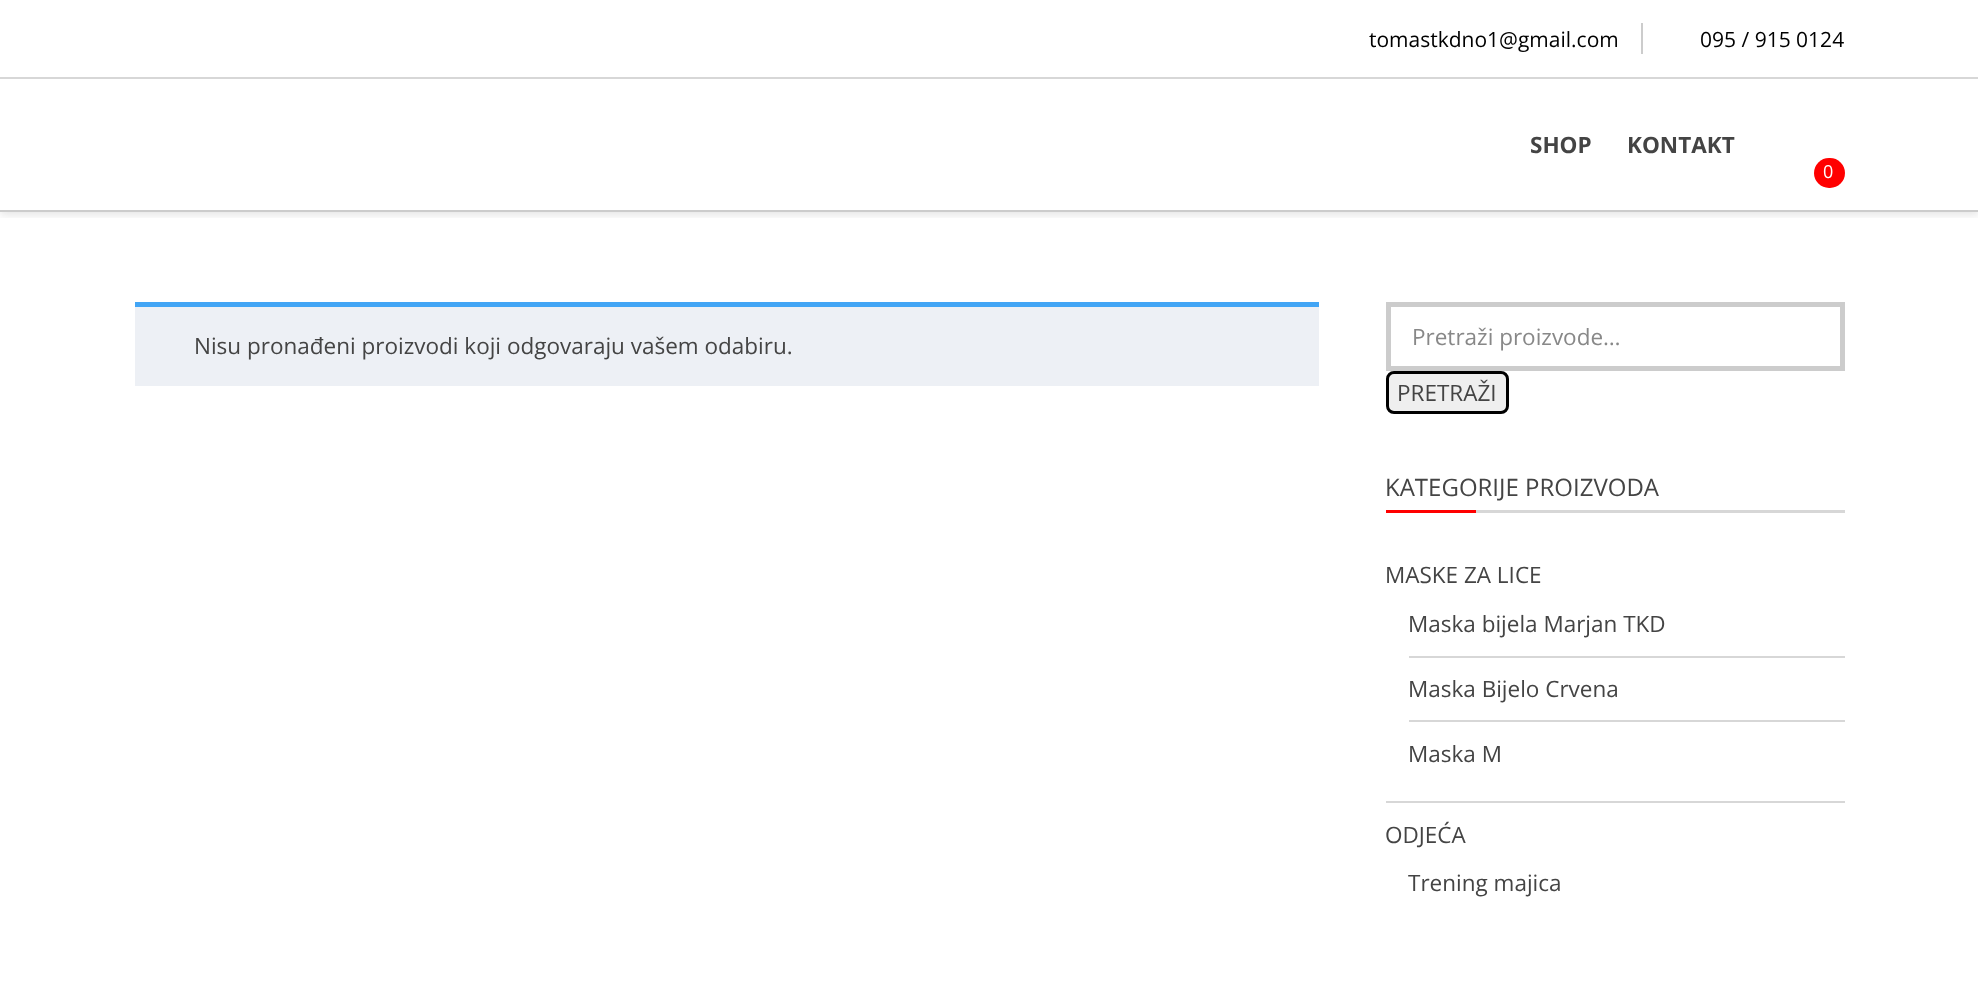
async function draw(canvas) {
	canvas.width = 1978;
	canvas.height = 1000;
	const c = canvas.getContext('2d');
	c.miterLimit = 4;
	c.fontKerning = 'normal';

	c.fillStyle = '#fff';
	c.fillRect(0, 0, 1978, 1000);
	c.save();
	c.beginPath();
	c.rect(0, 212, 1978, 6);
	c.clip();
	c.fillStyle = '#0000001a';
	c.filter = 'blur(4px)';
	c.beginPath();
	c.rect(0, 3, 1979, 212);
	c.fill();
	c.filter = 'none';
	c.restore();
	for (const [x, y, w, h, color] of [
		[0, 210, 1978, 2, '#ccc'],
		[0, 77, 1978, 2, '#d7d7d7'],
		[1641, 23, 2, 31, '#ccc'],
	]) {
		c.fillStyle = color;
		c.fillRect(x, y, w, h);
	}
	c.font = '21px Open Sans';
	c.fillStyle = '#000';
	c.fillText('tomastkdno1@gmail.com', 1369, 47);
	c.fillText('095 / 915 0124', 1700, 47);
	c.font = 'bold 22.5px Open Sans';
	c.fillStyle = '#444';
	c.fillText('SHOP', 1530, 153);
	c.fillText('KONTAKT', 1627, 153);
	c.fillStyle = '#f00';
	c.beginPath();
	c.roundRect(1814, 158, 31, 30, 15);
	c.fill();
	c.font = '18px Open Sans';
	c.fillStyle = '#fff';
	c.fillText('0', 1823, 178);
	c.fillStyle = '#edf0f5';
	c.fillRect(135, 307, 1184, 79);
	c.fillStyle = '#42a5f5';
	c.fillRect(135, 302, 1184, 5);
	c.font = '22.5px Open Sans';
	c.fillStyle = '#444';
	c.fillText('Nisu pronađeni proizvodi koji odgovaraju vašem odabiru.', 194, 354);
	c.strokeStyle = '#ccc';
	c.lineWidth = 5;
	c.strokeRect(1388.5, 304.5, 454, 64);
	c.fillStyle = '#888';
	c.fillText('Pretraži proizvode…', 1412, 345);
	c.fillStyle = '#efefef';
	c.beginPath();
	c.roundRect(1387.5, 372.5, 120, 40, 6.5);
	c.fill();
	c.strokeStyle = '#000';
	c.lineWidth = 3;
	c.stroke();
	c.fillStyle = '#444';
	c.fillText('PRETRAŽI', 1397, 401);
	c.fillStyle = '#d7d7d7';
	c.fillRect(1476, 510, 369, 3);
	c.font = '24px Open Sans';
	c.fillStyle = '#444';
	c.fillText('KATEGORIJE PROIZVODA', 1385, 496);
	c.fillStyle = '#f00';
	c.fillRect(1386, 510, 90, 3);
	c.fillStyle = '#d7d7d7';
	c.fillRect(1386, 801, 459, 2);
	c.font = '22.5px Open Sans';
	c.fillStyle = '#444';
	c.fillText('MASKE ZA LICE', 1385, 583);
	c.fillStyle = '#d7d7d7';
	c.fillRect(1409, 656, 436, 2);
	c.fillStyle = '#444';
	c.fillText('Maska bijela Marjan TKD', 1408, 632);
	c.fillStyle = '#d7d7d7';
	c.fillRect(1409, 720, 436, 2);
	c.fillStyle = '#444';
	for (const [text, x, y] of [
		['Maska Bijelo Crvena', 1408, 697],
		['Maska M', 1408, 762],
		['ODJEĆA', 1385, 843],
		['Trening majica', 1408, 891],
	]) {
		c.fillText(text, x, y);
	}
}

draw(document.querySelector('canvas'));
